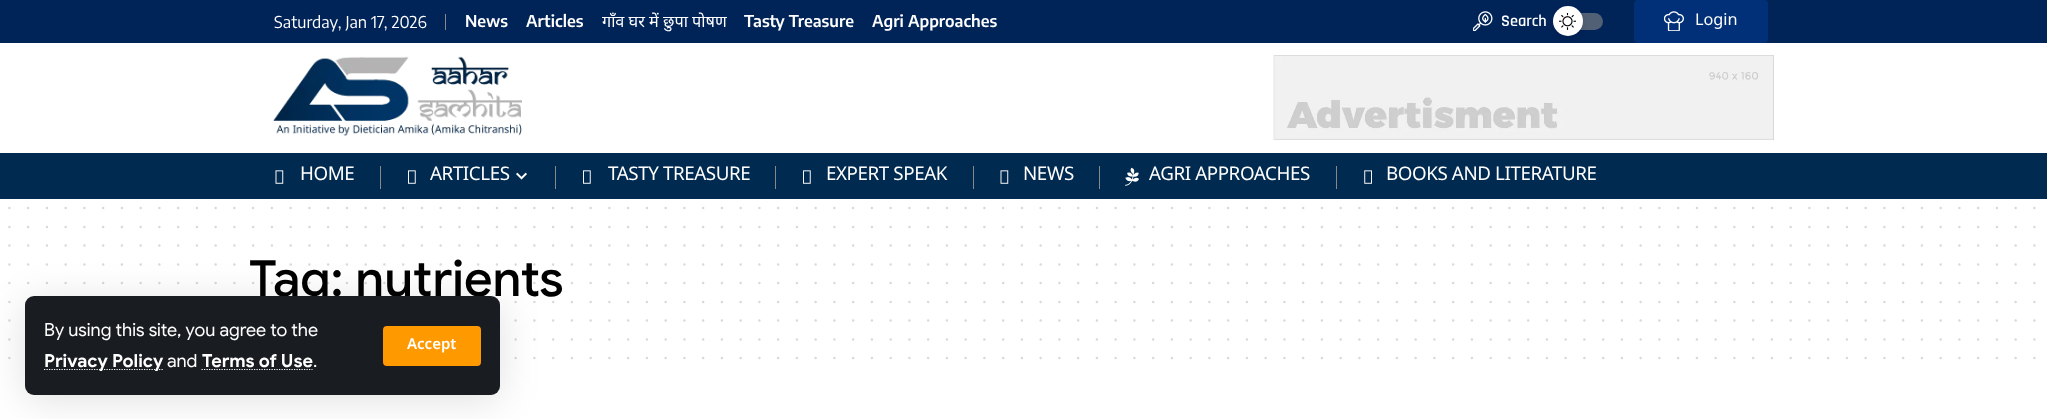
async function draw(canvas) {
	canvas.width = 2047;
	canvas.height = 419;
	const c = canvas.getContext('2d');
	c.miterLimit = 4;
	c.fontKerning = 'normal';
	async function loadImage(src) {
		const img = new Image();
		img.src = src;
		await img.decode();
		return img;
	}

	c.fillStyle = '#fff';
	c.fillRect(0, 0, 2047, 419);
	c.fillStyle = '#002358';
	c.fillRect(0, 0, 2047, 43);
	c.font = '16.25px Encode Sans Condensed';
	c.fillStyle = '#fff';
	c.fillText('Saturday, Jan 17, 2026', 274, 28);
	c.fillStyle = '#888';
	c.fillRect(445, 14, 1, 16);
	c.font = '600 16.25px Encode Sans Condensed';
	c.fillStyle = '#fff';
	c.fillText('News', 465, 27);
	c.fillText('Articles', 526, 27);
	c.font = '16.25px Noto Sans';
	c.fillText('गाँव घर में छुपा पोषण', 602, 27);
	c.font = '600 16.25px Encode Sans Condensed';
	c.fillText('Tasty Treasure', 744, 27);
	c.fillText('Agri Approaches', 872, 27);
	c.drawImage(await loadImage('img1.png'), 1473, 11, 20, 20);
	c.font = '600 16.25px Rajdhani';
	c.fillText('Search', 1501, 26);
	c.fillStyle = '#526075';
	c.beginPath();
	c.roundRect(1553, 13, 50, 17, 8.5);
	c.fill();
	c.fillStyle = '#0000001f';
	c.filter = 'blur(2.5px)';
	c.beginPath();
	c.roundRect(1553, 8, 30, 30, 15);
	c.fill();
	c.filter = 'none';
	c.fillStyle = '#fff';
	c.beginPath();
	c.arc(1568, 21, 15, 0, 2 * Math.PI);
	c.fill();
	c.drawImage(await loadImage('img2.png'), 1559, 13, 17, 17);
	c.fillStyle = '#013079';
	c.beginPath();
	c.roundRect(1634, 0, 134, 43, 4);
	c.fill();
	c.drawImage(await loadImage('img3.png'), 1664, 11, 20, 20);
	c.font = '16.25px Noto Sans Devanagari';
	c.fillStyle = '#fff';
	c.fillText('Login', 1695, 25);
	c.drawImage(await loadImage('img4.png'), 273, 56, 249, 80);
	c.drawImage(await loadImage('img5.png'), 1273, 55, 501, 85);
	c.fillStyle = '#002a50';
	c.fillRect(0, 153, 2047, 46);
	c.drawImage(await loadImage('img6.png'), 275, 170, 9, 14);
	c.letterSpacing = '-0.4px';
	c.font = '18.75px Noto Sans Devanagari';
	c.fillStyle = '#fff';
	c.fillText('HOME', 300, 180);
	c.fillStyle = '#888';
	c.fillRect(380, 166, 1, 23);
	c.drawImage(await loadImage('img7.png'), 408, 170, 8, 14);
	c.fillStyle = '#fff';
	c.fillText('ARTICLES', 430, 180);
	c.drawImage(await loadImage('img8.png'), 516, 172, 11, 8);
	c.fillStyle = '#888';
	c.fillRect(555, 166, 1, 23);
	c.drawImage(await loadImage('img7.png'), 583, 170, 8, 14);
	c.fillStyle = '#fff';
	c.fillText('TASTY TREASURE', 608, 180);
	c.fillStyle = '#888';
	c.fillRect(775, 166, 1, 23);
	c.drawImage(await loadImage('img7.png'), 803, 170, 8, 14);
	c.fillStyle = '#fff';
	c.fillText('EXPERT SPEAK', 826, 180);
	c.fillStyle = '#888';
	c.fillRect(973, 166, 1, 23);
	c.drawImage(await loadImage('img6.png'), 1000, 170, 9, 14);
	c.fillStyle = '#fff';
	c.fillText('NEWS', 1023, 180);
	c.fillStyle = '#888';
	c.fillRect(1099, 166, 1, 23);
	c.drawImage(await loadImage('img9.png'), 1125, 167, 14, 19);
	c.fillStyle = '#fff';
	c.fillText('AGRI APPROACHES', 1149, 180);
	c.fillStyle = '#888';
	c.fillRect(1336, 166, 1, 23);
	c.drawImage(await loadImage('img10.png'), 1364, 170, 8, 14);
	c.fillStyle = '#fff';
	c.fillText('BOOKS AND LITERATURE', 1386, 180);
	c.beginPath();
	c.moveTo(9.4, 245.6);
	c.lineTo(2034.6, 245.6);
	c.strokeStyle = '#d9d9d9';
	c.lineWidth = 2.5;
	c.lineCap = 'round';
	c.setLineDash([0, 18.75]);
	c.stroke();
	c.letterSpacing = '0px';
	c.font = '500 50px Google Sans';
	c.fillStyle = '#000';
	c.fillText('Tag: nutrients', 249, 296);
	c.beginPath();
	c.moveTo(9.4, 264.4);
	c.lineTo(2034.6, 264.4);
	c.strokeStyle = '#00000026';
	c.stroke();
	c.beginPath();
	c.moveTo(9.4, 283.1);
	c.lineTo(2034.6, 283.1);
	c.stroke();
	c.beginPath();
	c.moveTo(9.4, 301.9);
	c.lineTo(2034.6, 301.9);
	c.stroke();
	c.beginPath();
	c.moveTo(9.4, 320.6);
	c.lineTo(2034.6, 320.6);
	c.strokeStyle = '#d9d9d9';
	c.stroke();
	c.beginPath();
	c.moveTo(9.4, 339.4);
	c.lineTo(2034.6, 339.4);
	c.stroke();
	c.beginPath();
	c.moveTo(9.4, 358.1);
	c.lineTo(2034.6, 358.1);
	c.stroke();
	c.fillStyle = '#0000001f';
	c.filter = 'blur(19px)';
	c.beginPath();
	c.roundRect(25, 301, 475, 99, 9);
	c.fill();
	c.filter = 'none';
	c.fillStyle = '#191c20';
	c.beginPath();
	c.roundRect(25, 296, 475, 99, 9);
	c.fill();
	c.font = '18px Google Sans';
	c.fillStyle = '#fff';
	c.fillText('By using this site, you agree to the', 44, 336);
	c.beginPath();
	c.moveTo(44, 369.5);
	c.lineTo(163, 369.5);
	c.strokeStyle = '#fff';
	c.lineWidth = 1.2;
	c.lineCap = 'butt';
	c.setLineDash([1.25, 1.25]);
	c.stroke();
	c.font = 'bold 18px Google Sans';
	c.fillText('Privacy Policy', 44, 367);
	c.font = '18px Google Sans';
	c.fillText('and', 167, 367);
	c.font = 'bold 18px Google Sans';
	c.fillText('Terms of Use', 202, 367);
	c.beginPath();
	c.moveTo(201.5, 369.5);
	c.lineTo(312.5, 369.5);
	c.stroke();
	c.font = '18px Google Sans';
	c.fillText('.', 313, 367);
	c.fillStyle = '#f90';
	c.beginPath();
	c.roundRect(383, 326, 98, 40, 4);
	c.fill();
	c.font = '600 15px Noto Sans Devanagari';
	c.fillStyle = '#fff';
	c.fillText('Accept', 407, 349);
	c.beginPath();
	c.moveTo(9.4, 208.1);
	c.lineTo(2034.6, 208.1);
	c.strokeStyle = '#d9d9d9';
	c.lineWidth = 2.5;
	c.lineCap = 'round';
	c.setLineDash([0, 18.75]);
	c.stroke();
	c.beginPath();
	c.moveTo(9.4, 226.9);
	c.lineTo(2034.6, 226.9);
	c.stroke();
}

draw(document.querySelector('canvas'));
